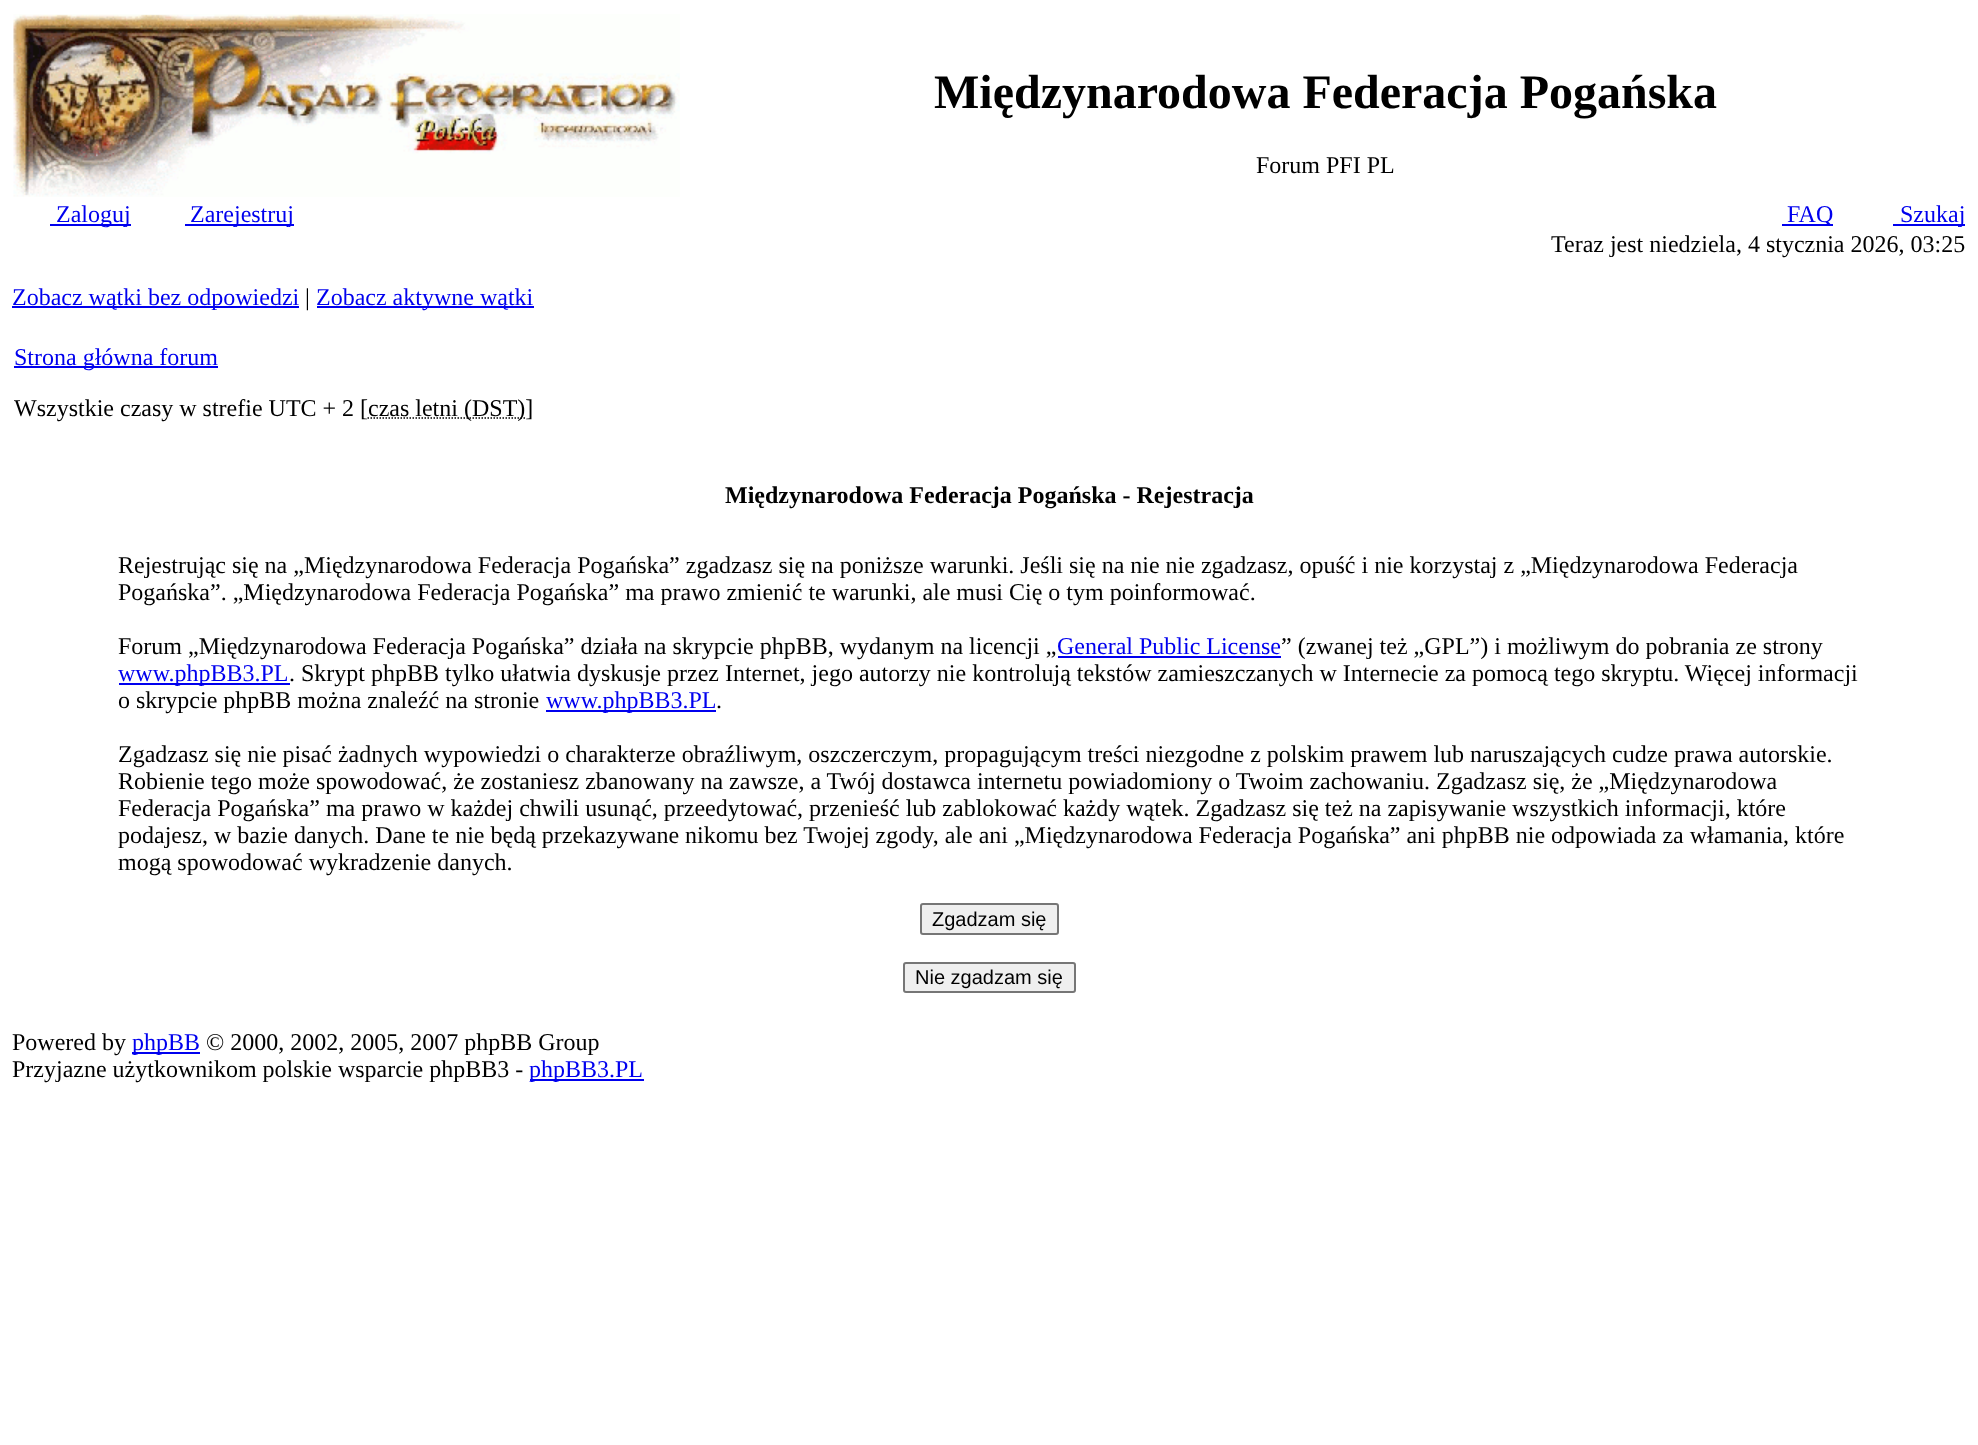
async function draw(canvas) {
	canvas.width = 1978;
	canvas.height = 1445;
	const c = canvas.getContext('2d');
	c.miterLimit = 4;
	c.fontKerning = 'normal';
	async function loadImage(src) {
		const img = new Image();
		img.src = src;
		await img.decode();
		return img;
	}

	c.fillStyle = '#fff';
	c.fillRect(0, 0, 1978, 1445);
	c.drawImage(await loadImage('img1.png'), 13, 14, 667, 183);
	c.font = 'bold 48px Liberation Serif';
	c.fillStyle = '#000';
	c.fillText('Międzynarodowa Federacja Pogańska', 934, 108);
	c.font = '24px Liberation Serif';
	c.fillText('Forum PFI PL', 1256, 173);
	c.fillStyle = '#00e';
	c.fillRect(50, 224, 81, 2);
	c.fillText('Zaloguj', 56, 222);
	c.fillRect(185, 224, 109, 2);
	c.fillText('Zarejestruj', 190, 222);
	c.fillRect(1782, 224, 51, 2);
	c.fillText('FAQ', 1787, 222);
	c.fillRect(1893, 224, 72, 2);
	c.fillText('Szukaj', 1900, 222);
	c.fillStyle = '#000';
	c.fillText('Teraz jest niedziela, 4 stycznia 2026, 03:25', 1551, 252);
	c.fillStyle = '#00e';
	c.fillRect(12, 306, 287, 2);
	c.fillText('Zobacz wątki bez odpowiedzi', 12, 305);
	c.fillStyle = '#000';
	c.fillText('|', 305, 305);
	c.fillStyle = '#00e';
	c.fillRect(317, 306, 217, 2);
	c.fillText('Zobacz aktywne wątki', 316, 305);
	c.fillRect(14, 366, 204, 2);
	c.fillText('Strona główna forum', 14, 365);
	c.fillStyle = '#000';
	c.fillText('Wszystkie czasy w strefie UTC + 2 [', 14, 416);
	c.beginPath();
	c.moveTo(367.5, 418);
	c.lineTo(525, 418);
	c.strokeStyle = '#000';
	c.lineWidth = 1.5;
	c.setLineDash([1.5, 1.5]);
	c.stroke();
	c.fillText('czas letni (DST)]', 368, 416);
	c.font = 'bold 24px Liberation Serif';
	c.fillText('Międzynarodowa Federacja Pogańska - Rejestracja', 725, 503);
	c.font = '24px Liberation Serif';
	for (const [text, x, y] of [
		['Rejestrując się na „Międzynarodowa Federacja Pogańska” zgadzasz się na poniższe warunki. Jeśli się na nie nie zgadzasz, opuść i nie korzystaj z „Międzynarodowa Federacja', 118, 573],
		['Pogańska”. „Międzynarodowa Federacja Pogańska” ma prawo zmienić te warunki, ale musi Cię o tym poinformować.', 118, 600],
		['Forum „Międzynarodowa Federacja Pogańska” działa na skrypcie phpBB, wydanym na licencji „', 118, 654],
	]) {
		c.fillText(text, x, y);
	}
	c.fillStyle = '#00e';
	c.fillText('General Public License', 1057, 654);
	c.fillStyle = '#000';
	c.fillText('” (zwanej też „GPL”) i możliwym do pobrania ze strony', 1281, 654);
	c.fillStyle = '#00e';
	c.fillRect(1058, 656, 223, 2);
	c.fillRect(119, 683, 171, 2);
	c.fillText('www.phpBB3.PL', 118, 681);
	c.fillStyle = '#000';
	c.fillText('. Skrypt phpBB tylko ułatwia dyskusje przez Internet, jego autorzy nie kontrolują tekstów zamieszczanych w Internecie za pomocą tego skryptu. Więcej informacji', 289, 681);
	c.fillText('o skrypcie phpBB można znaleźć na stronie', 118, 708);
	c.fillStyle = '#00e';
	c.fillRect(546, 710, 170, 2);
	c.fillText('www.phpBB3.PL', 546, 708);
	c.fillStyle = '#000';
	for (const [text, x, y] of [
		['.', 716, 708],
		['Zgadzasz się nie pisać żadnych wypowiedzi o charakterze obraźliwym, oszczerczym, propagującym treści niezgodne z polskim prawem lub naruszających cudze prawa autorskie.', 118, 762],
		['Robienie tego może spowodować, że zostaniesz zbanowany na zawsze, a Twój dostawca internetu powiadomiony o Twoim zachowaniu. Zgadzasz się, że „Międzynarodowa', 118, 789],
		['Federacja Pogańska” ma prawo w każdej chwili usunąć, przeedytować, przenieść lub zablokować każdy wątek. Zgadzasz się też na zapisywanie wszystkich informacji, które', 118, 816],
		['podajesz, w bazie danych. Dane te nie będą przekazywane nikomu bez Twojej zgody, ale ani „Międzynarodowa Federacja Pogańska” ani phpBB nie odpowiada za włamania, które', 118, 843],
		['mogą spowodować wykradzenie danych.', 118, 870],
	]) {
		c.fillText(text, x, y);
	}
	c.fillStyle = '#efefef';
	c.beginPath();
	c.roundRect(921, 904, 137, 30, 2);
	c.fill();
	c.strokeStyle = '#767676';
	c.lineWidth = 2;
	c.setLineDash([]);
	c.stroke();
	c.font = '20px Liberation Sans';
	c.fillStyle = '#000';
	c.fillText('Zgadzam się', 932, 926);
	c.fillStyle = '#efefef';
	c.beginPath();
	c.roundRect(904, 963, 171, 29, 2);
	c.fill();
	c.stroke();
	c.fillStyle = '#000';
	c.fillText('Nie zgadzam się', 915, 984);
	c.font = '24px Liberation Serif';
	c.fillText('Powered by', 12, 1050);
	c.fillStyle = '#00e';
	c.fillRect(132, 1052, 68, 2);
	c.fillText('phpBB', 132, 1050);
	c.fillStyle = '#000';
	c.fillText('© 2000, 2002, 2005, 2007 phpBB Group', 206, 1050);
	c.fillText('Przyjazne użytkownikom polskie wsparcie phpBB3 -', 12, 1077);
	c.fillStyle = '#00e';
	c.fillRect(530, 1079, 114, 2);
	c.fillText('phpBB3.PL', 529, 1077);
}

draw(document.querySelector('canvas'));
